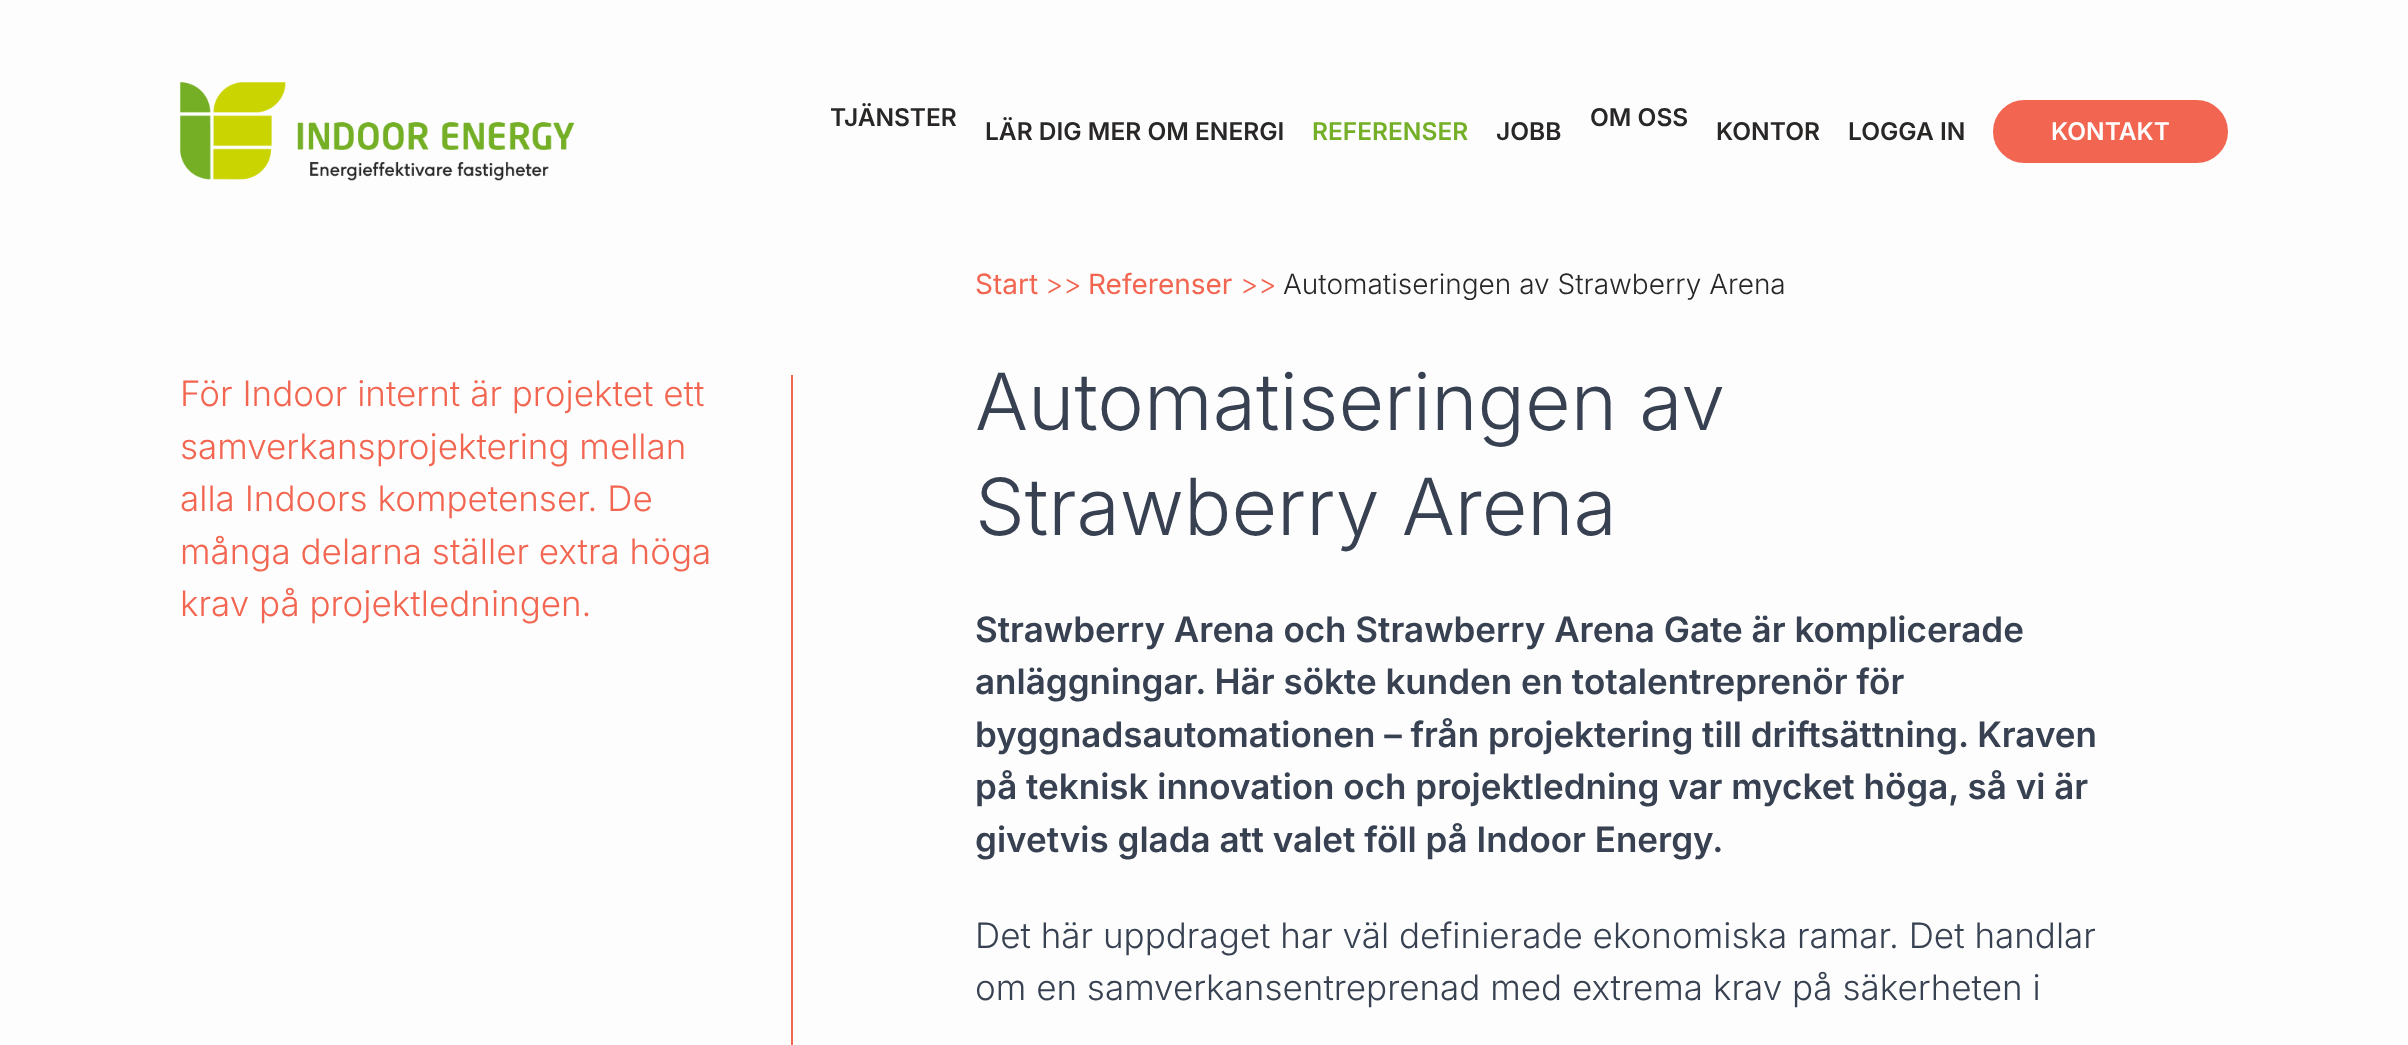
async function draw(canvas) {
	canvas.width = 2408;
	canvas.height = 1045;
	const c = canvas.getContext('2d');
	c.miterLimit = 4;
	c.fontKerning = 'normal';
	async function loadImage(src) {
		const img = new Image();
		img.src = src;
		await img.decode();
		return img;
	}

	c.fillStyle = '#fdfdfd';
	c.fillRect(0, 0, 2408, 1045);
	c.drawImage(await loadImage('img1.png'), 180, 82, 394, 99);
	c.font = '600 24.5px Inter';
	c.fillStyle = '#292626';
	c.fillText('TJÄNSTER', 830, 126);
	c.fillText('LÄR DIG MER OM ENERGI', 985, 140);
	c.fillStyle = '#74af27';
	c.fillText('REFERENSER', 1312, 140);
	c.fillStyle = '#292626';
	for (const [text, x, y] of [
		['JOBB', 1496, 140],
		['OM OSS', 1590, 126],
		['KONTOR', 1716, 140],
		['LOGGA IN', 1848, 140],
	]) {
		c.fillText(text, x, y);
	}
	c.fillStyle = '#f26651';
	c.beginPath();
	c.roundRect(1994, 101, 233, 61, 30.5);
	c.fill();
	c.strokeStyle = '#f26651';
	c.lineWidth = 2;
	c.stroke();
	c.fillStyle = '#fff';
	c.fillText('KONTAKT', 2051, 140);
	c.fillStyle = '#f26651';
	c.fillRect(791, 375, 2, 670);
	c.font = '300 35px Inter';
	for (const [text, x, y] of [
		['För Indoor internt är projektet ett', 180, 406],
		['samverkansprojektering mellan', 180, 459],
		['alla Indoors kompetenser. De', 180, 511],
		['många delarna ställer extra höga', 180, 564],
		['krav på projektledningen.', 180, 616],
	]) {
		c.fillText(text, x, y);
	}
	c.font = '28px Inter';
	c.fillText('Start', 975, 294);
	c.font = '300 28px Inter';
	c.fillText('>>', 1045, 294);
	c.font = '28px Inter';
	c.fillText('Referenser', 1088, 294);
	c.font = '300 28px Inter';
	c.fillText('>>', 1240, 294);
	c.fillStyle = '#292626';
	c.fillText('Automatiseringen av Strawberry Arena', 1283, 294);
	c.font = '300 78.75px Inter';
	c.fillStyle = '#374151';
	c.fillText('Automatiseringen av', 975, 430);
	c.fillText('Strawberry Arena', 975, 535);
	c.font = '600 35px Inter';
	for (const [text, x, y] of [
		['Strawberry Arena och Strawberry Arena Gate är komplicerade', 975, 642],
		['anläggningar. Här sökte kunden en totalentreprenör för', 975, 694],
		['byggnadsautomationen – från projektering till driftsättning. Kraven', 975, 747],
		['på teknisk innovation och projektledning var mycket höga, så vi är', 975, 799],
		['givetvis glada att valet föll på Indoor Energy.', 975, 852],
	]) {
		c.fillText(text, x, y);
	}
	c.font = '300 35px Inter';
	c.fillText('Det här uppdraget har väl definierade ekonomiska ramar. Det handlar', 975, 948);
	c.fillText('om en samverkansentreprenad med extrema krav på säkerheten i', 975, 1000);
}

draw(document.querySelector('canvas'));
